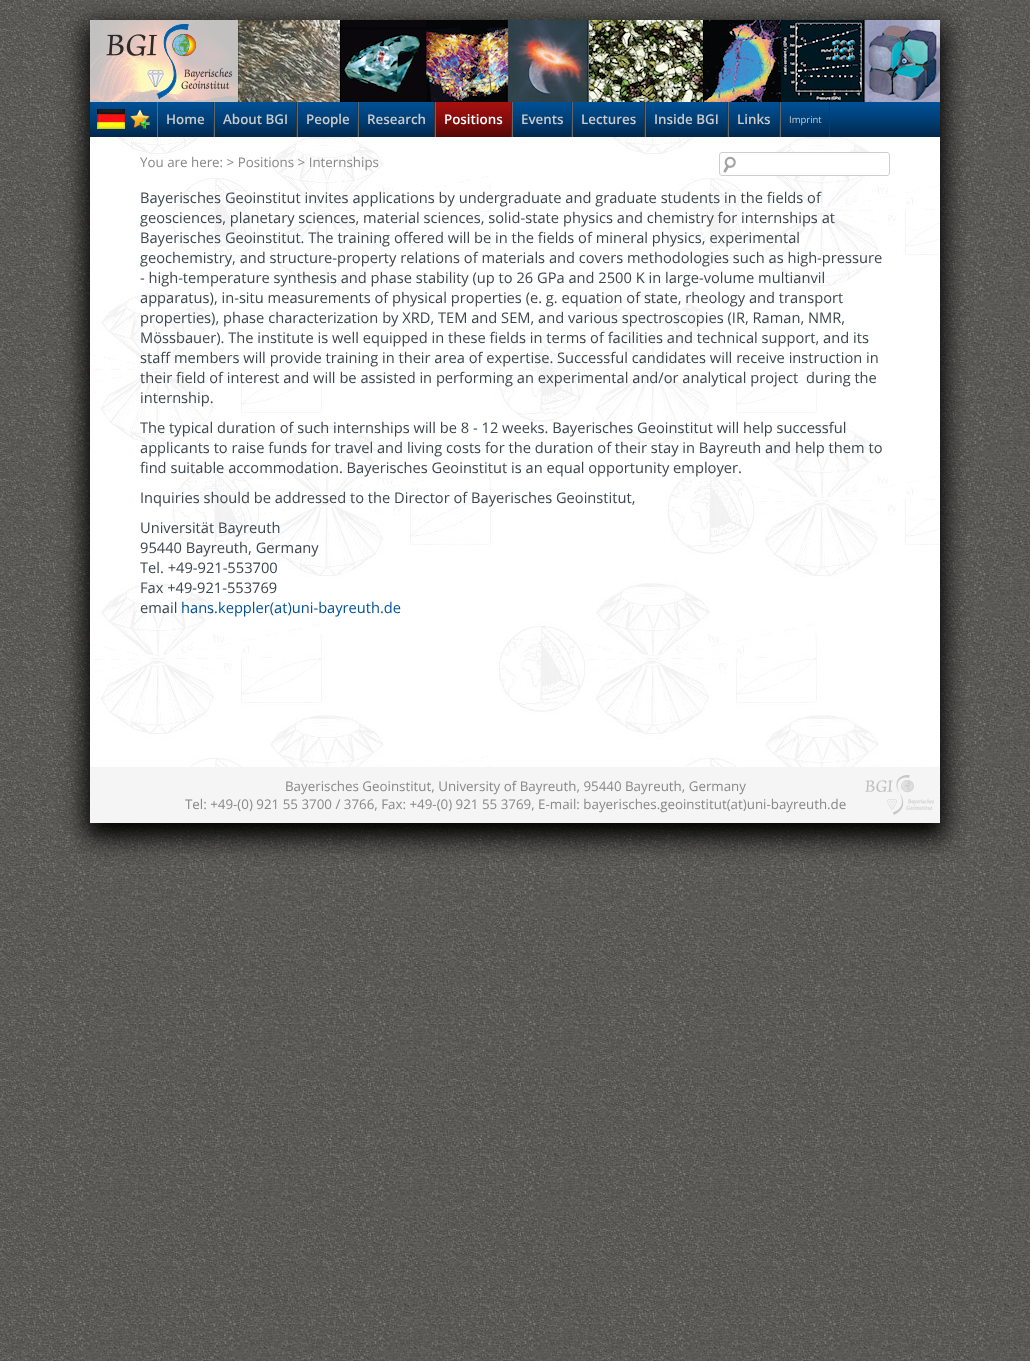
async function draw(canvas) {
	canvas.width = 1030;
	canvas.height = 1361;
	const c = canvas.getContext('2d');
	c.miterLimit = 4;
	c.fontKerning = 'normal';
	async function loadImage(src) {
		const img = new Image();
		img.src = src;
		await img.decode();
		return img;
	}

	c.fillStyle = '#fff';
	c.fillRect(0, 0, 1030, 1361);
	c.drawImage(await loadImage('img1.png'), 0, 0, 1030, 1361);
	c.fillStyle = '#000';
	c.filter = 'blur(12.5px)';
	c.beginPath();
	c.rect(85, 25, 860, 813);
	c.fill();
	c.filter = 'none';
	c.drawImage(await loadImage('img2.png'), 90, 137, 850, 630);
	c.drawImage(await loadImage('img3.png'), 90, 20, 850, 82);
	c.fillStyle = '#005197';
	c.fillRect(90, 102, 850, 35);
	c.drawImage(await loadImage('img4.png'), 90, 103, 850, 34);
	c.drawImage(await loadImage('img5.png'), 97, 109, 28, 20);
	c.drawImage(await loadImage('img6.png'), 130, 109, 20, 20);
	c.fillStyle = '#333';
	c.fillRect(213, 102, 1, 35);
	c.fillStyle = '#666';
	c.fillRect(157, 102, 1, 35);
	c.font = '600 13.35px Open Sans';
	c.fillStyle = '#ccc';
	c.fillText('Home', 166, 124);
	c.fillStyle = '#333';
	c.fillRect(296, 102, 1, 35);
	c.fillStyle = '#666';
	c.fillRect(214, 102, 1, 35);
	c.fillStyle = '#ccc';
	c.fillText('About BGI', 223, 124);
	c.fillStyle = '#333';
	c.fillRect(357, 102, 1, 35);
	c.fillStyle = '#666';
	c.fillRect(297, 102, 1, 35);
	c.fillStyle = '#ccc';
	c.fillText('People', 306, 124);
	c.fillStyle = '#333';
	c.fillRect(434, 102, 1, 35);
	c.fillStyle = '#666';
	c.fillRect(358, 102, 1, 35);
	c.fillStyle = '#ccc';
	c.fillText('Research', 367, 124);
	c.fillStyle = '#a91110';
	c.fillRect(436, 102, 75, 35);
	c.drawImage(await loadImage('img7.png'), 436, 103, 75, 34);
	c.fillStyle = '#333';
	c.fillRect(511, 102, 1, 35);
	c.fillStyle = '#666';
	c.fillRect(435, 102, 1, 35);
	c.fillStyle = '#fff';
	c.fillText('Positions', 444, 124);
	c.fillStyle = '#333';
	c.fillRect(571, 102, 1, 35);
	c.fillStyle = '#666';
	c.fillRect(512, 102, 1, 35);
	c.fillStyle = '#ccc';
	c.fillText('Events', 521, 124);
	c.fillStyle = '#333';
	c.fillRect(644, 102, 1, 35);
	c.fillStyle = '#666';
	c.fillRect(572, 102, 1, 35);
	c.fillStyle = '#ccc';
	c.fillText('Lectures', 581, 124);
	c.fillStyle = '#333';
	c.fillRect(727, 102, 1, 35);
	c.fillStyle = '#666';
	c.fillRect(645, 102, 1, 35);
	c.fillStyle = '#ccc';
	c.fillText('Inside BGI', 654, 124);
	c.fillStyle = '#333';
	c.fillRect(779, 102, 1, 35);
	c.fillStyle = '#666';
	c.fillRect(728, 102, 1, 35);
	c.fillStyle = '#ccc';
	c.fillText('Links', 737, 124);
	c.fillStyle = '#333';
	c.fillRect(829, 102, 1, 35);
	c.fillStyle = '#666';
	c.fillRect(780, 102, 1, 35);
	c.font = '9.5px Open Sans';
	c.fillStyle = '#ccc';
	c.fillText('Imprint', 789, 123);
	c.font = '13.35px Open Sans';
	c.fillStyle = '#888';
	c.fillText('You are here: > Positions > Internships', 140, 167);
	c.fillStyle = '#fff';
	c.beginPath();
	c.roundRect(719, 152, 171, 24, 3);
	c.fill();
	c.drawImage(await loadImage('img8.png'), 723, 156, 13, 17);
	c.beginPath();
	c.roundRect(719.5, 152.5, 170, 23, 2.5);
	c.strokeStyle = '#cecece';
	c.stroke();
	c.font = '14.67px Open Sans';
	c.fillStyle = '#3d464d';
	for (const [text, x, y] of [
		['Bayerisches Geoinstitut invites applications by undergraduate and graduate students in the fields of', 140, 203],
		['geosciences, planetary sciences, material sciences, solid-state', 140, 223],
		['physics and chemistry for internships at', 563, 223],
		['Bayerisches Geoinstitut. The training offered will be in the fields of mineral physics, experimental', 140, 243],
		['geochemistry, and structure-property relations of materials and covers methodologies such as high-pressure', 140, 263],
		['- high-temperature synthesis and phase stability (up to 26 GPa and 2500 K in large-volume multianvil', 140, 283],
		['apparatus), in-situ measurements of physical properties (e. g. equation of state, rheology and transport', 140, 303],
		['properties), phase characterization by XRD, TEM and SEM, and various spectroscopies (IR, Raman, NMR,', 140, 323],
		['Mössbauer). The institute is well equipped in these fields in terms of facilities and technical support, and its', 140, 343],
		['staff members will provide training in their area of expertise.', 140, 363],
		['Successful candidates will receive instruction in', 557, 363],
		['their field of interest and will be assisted in performing an experimental and/or analytical project', 140, 383],
		['during the', 806, 383],
		['internship.', 140, 403],
		['The typical duration of such internships will be 8 - 12 weeks. Bayerisches Geoinstitut will help successful', 140, 433],
		['applicants to raise funds for travel and living costs for the duration of their stay in Bayreuth and help them to', 140, 453],
		['find suitable accommodation. Bayerisches Geoinstitut is an equal opportunity employer.', 140, 473],
		['Inquiries should be addressed to the Director of Bayerisches Geoinstitut,', 140, 503],
		['Universität Bayreuth', 140, 533],
		['95440 Bayreuth, Germany', 140, 553],
		['Tel. +49-921-553700', 140, 573],
		['Fax +49-921-553769', 140, 593],
		['email', 140, 613],
	]) {
		c.fillText(text, x, y);
	}
	c.fillStyle = '#005197';
	c.fillText('hans.keppler(at)uni-bayreuth.de', 181, 613);
	c.fillStyle = '#f5f5f5';
	c.fillRect(90, 767, 850, 56);
	c.drawImage(await loadImage('img9.png'), 865, 775, 69, 40);
	c.font = '13.35px Open Sans';
	c.fillStyle = '#888';
	c.fillText('Bayerisches Geoinstitut, University of Bayreuth, 95440 Bayreuth, Germany', 285, 791);
	c.fillText('Tel: +49-(0) 921 55 3700 / 3766, Fax: +49-(0) 921 55 3769, E-mail: bayerisches.geoinstitut(at)uni-bayreuth.de', 185, 809);
}

draw(document.querySelector('canvas'));
